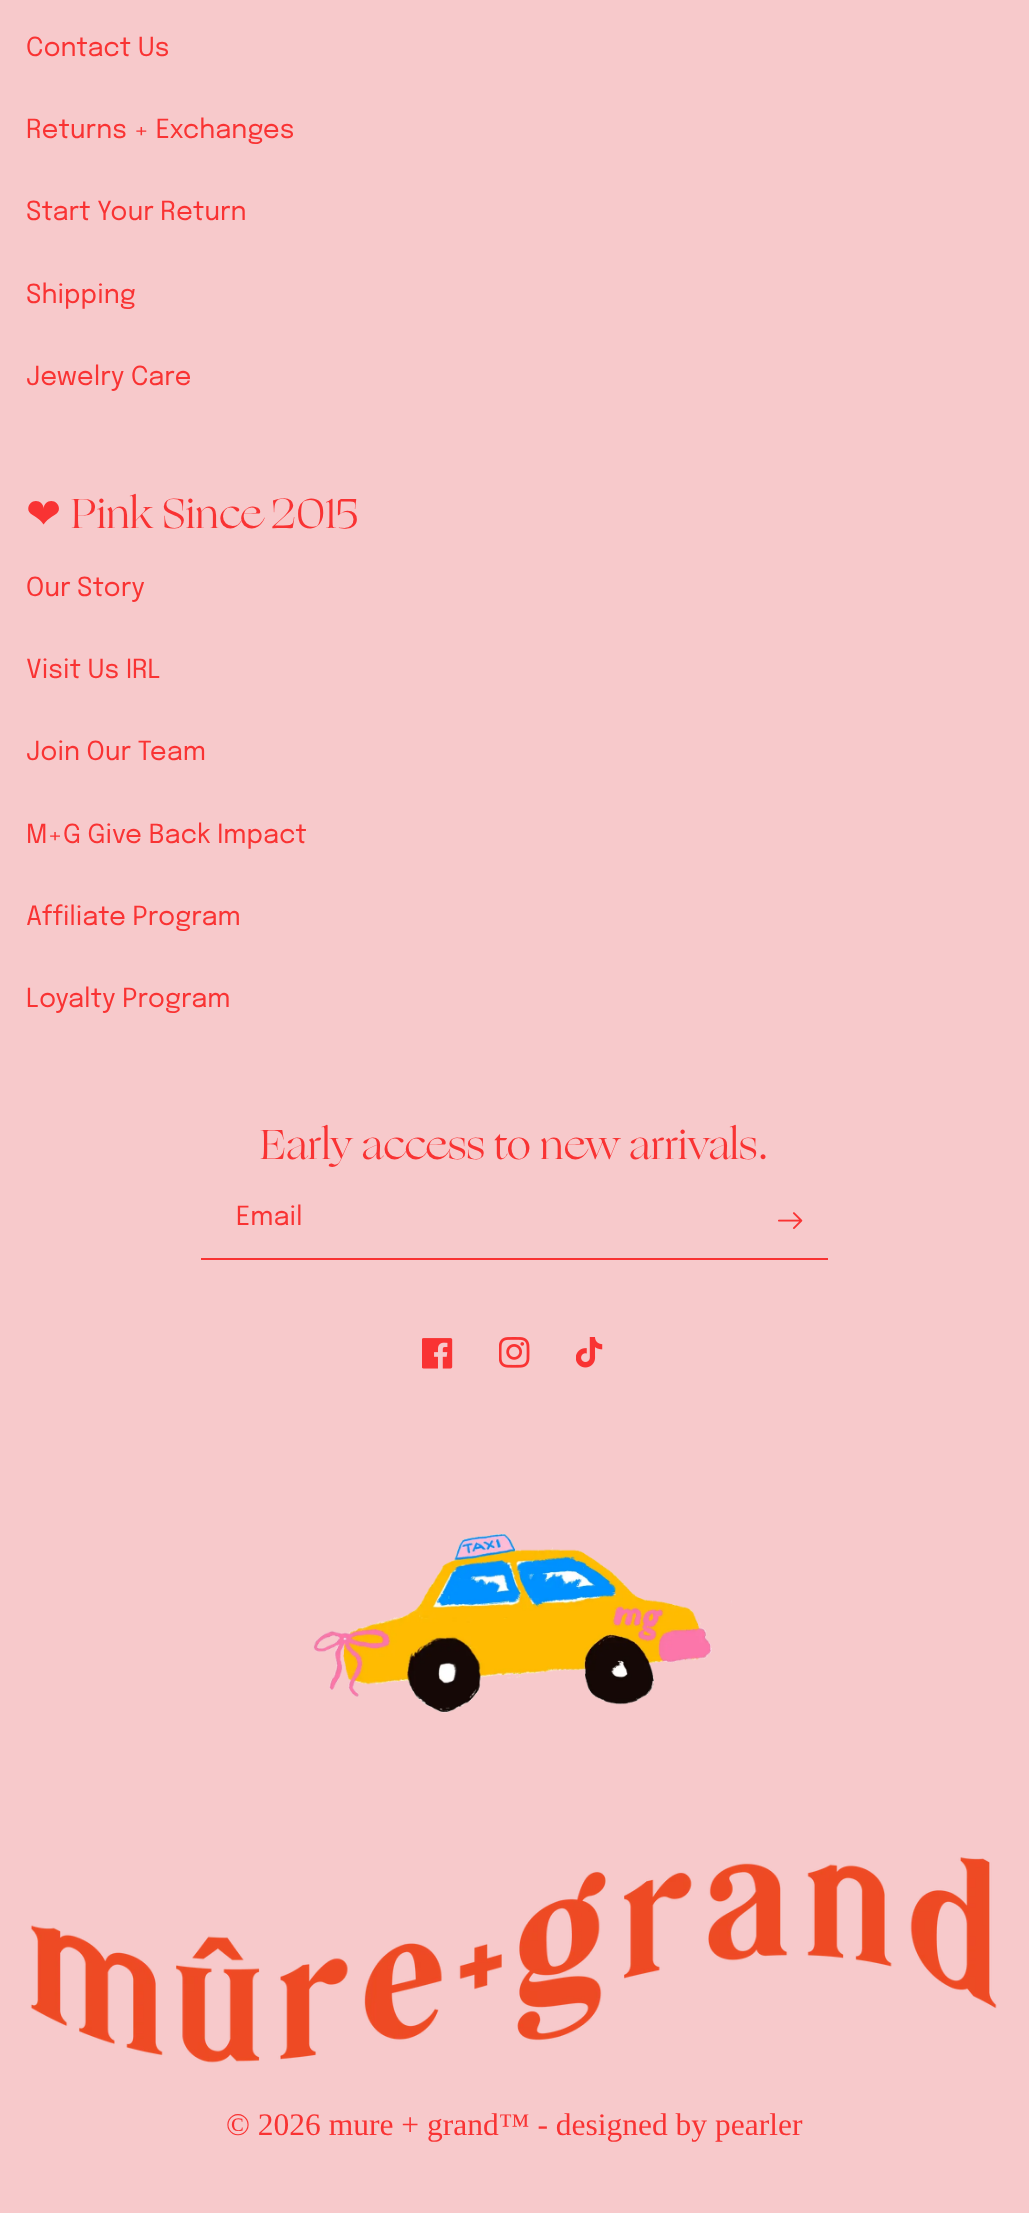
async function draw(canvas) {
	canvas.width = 1029;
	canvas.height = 2213;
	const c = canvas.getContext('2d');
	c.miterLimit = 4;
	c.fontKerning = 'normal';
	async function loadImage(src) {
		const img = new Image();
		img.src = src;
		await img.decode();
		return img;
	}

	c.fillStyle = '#f7c9cb';
	c.fillRect(0, 0, 1029, 2213);
	c.font = '26.25px Epilogue';
	c.fillStyle = '#f93333';
	for (const [text, x, y] of [
		['Contact Us', 26, 56],
		['Returns + Exchanges', 26, 138],
		['Start Your Return', 26, 220],
		['Shipping', 26, 303],
		['Jewelry Care', 26, 385],
	]) {
		c.fillText(text, x, y);
	}
	c.font = '42px DejaVu Sans';
	c.fillText('❤︎', 26, 528);
	c.font = '42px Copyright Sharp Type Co';
	c.fillText('Pink Since 2015', 71, 528);
	c.font = '26.25px Epilogue';
	for (const [text, x, y] of [
		['Our Story', 26, 596],
		['Visit Us IRL', 26, 678],
		['Join Our Team', 26, 760],
		['M+G Give Back Impact', 26, 843],
		['Affiliate Program', 26, 925],
		['Loyalty Program', 26, 1007],
	]) {
		c.fillText(text, x, y);
	}
	c.font = '42px Copyright Sharp Type Co';
	c.fillText('Early access to new arrivals.', 260, 1159);
	c.font = '26.25px Epilogue';
	c.fillText('Email', 236, 1225);
	c.drawImage(await loadImage('img1.png'), 778, 1212, 25, 17);
	c.fillRect(201, 1258, 627, 2);
	c.drawImage(await loadImage('img2.png'), 422, 1338, 31, 31);
	c.drawImage(await loadImage('img3.png'), 499, 1337, 31, 31);
	c.drawImage(await loadImage('img4.png'), 576, 1337, 27, 31);
	c.drawImage(await loadImage('img5.png'), 313, 1533, 419, 180);
	c.drawImage(await loadImage('img6.png'), 30, 1857, 967, 206);
	c.font = '31.5px Liberation Serif';
	c.fillText('© 2026 mure + grand™ - designed by pearler', 226, 2135);
}

draw(document.querySelector('canvas'));
